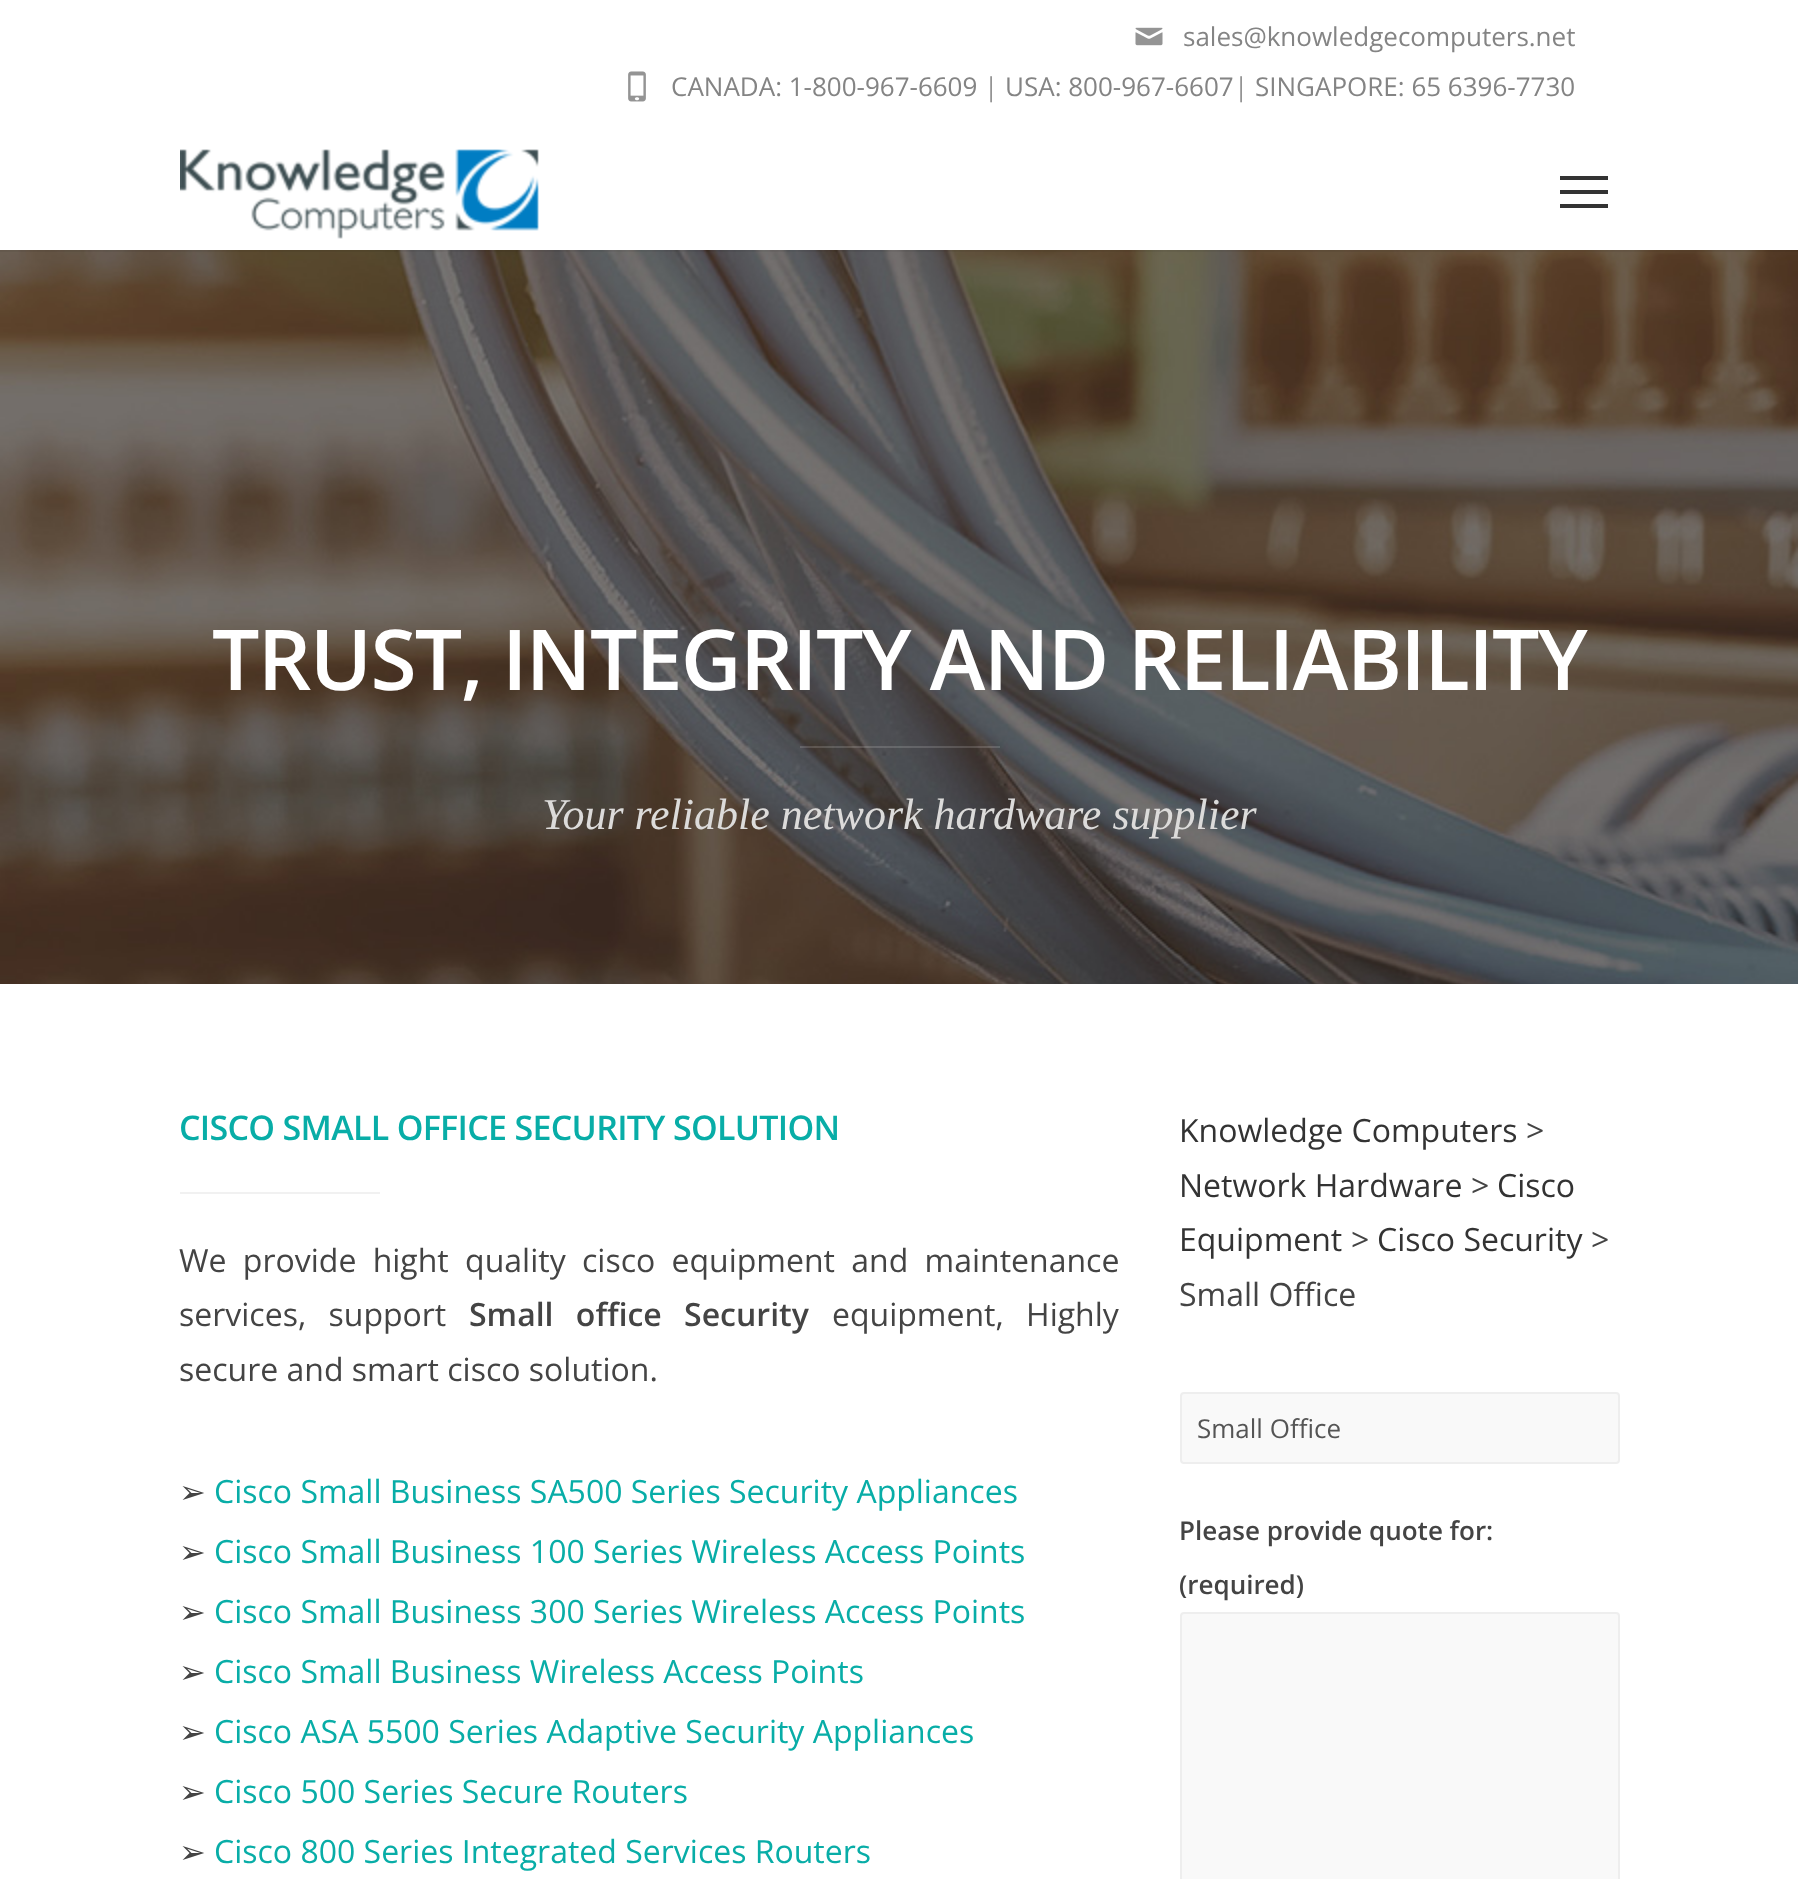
async function draw(canvas) {
	canvas.width = 1798;
	canvas.height = 1879;
	const c = canvas.getContext('2d');
	c.miterLimit = 4;
	c.fontKerning = 'normal';
	async function loadImage(src) {
		const img = new Image();
		img.src = src;
		await img.decode();
		return img;
	}

	c.fillStyle = '#fff';
	c.fillRect(0, 0, 1798, 1879);
	c.drawImage(await loadImage('img4.png'), 0, 250, 1798, 734);
	c.strokeStyle = '#0000000d';
	c.lineWidth = 2;
	c.strokeRect(-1, -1, 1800, 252);
	c.drawImage(await loadImage('img1.png'), 1135, 27, 28, 19);
	c.font = '26px Open Sans';
	c.fillStyle = '#848484';
	c.fillText('sales@knowledgecomputers.net', 1183, 46);
	c.drawImage(await loadImage('img2.png'), 628, 71, 18, 31);
	c.fillText('CANADA: 1-800-967-6609', 671, 96);
	c.fillStyle = '#949494';
	c.fillText('|', 984, 96);
	c.fillStyle = '#848484';
	c.fillText('USA: 800-967-6607', 1005, 96);
	c.fillStyle = '#949494';
	c.fillText('|', 1234, 96);
	c.fillStyle = '#848484';
	c.fillText('SINGAPORE: 65 6396-7730', 1255, 96);
	c.drawImage(await loadImage('img3.png'), 180, 149, 359, 90);
	for (const [x, y, w, h, color] of [
		[1560, 176, 48, 4, '#333'],
		[1560, 190, 48, 4, '#333'],
		[1560, 204, 48, 4, '#333'],
	]) {
		c.fillStyle = color;
		c.fillRect(x, y, w, h);
	}
	c.letterSpacing = '-1.7px';
	c.font = '600 84px Open Sans';
	c.fillStyle = '#fff';
	c.fillText('TRUST, INTEGRITY AND RELIABILITY', 212, 690);
	c.fillStyle = '#ffffff26';
	c.fillRect(800, 746, 200, 2);
	c.letterSpacing = '0px';
	c.font = 'italic 44px Liberation Serif';
	c.fillStyle = '#dcdbda';
	c.fillText('Your reliable network hardware supplier', 542, 829);
	c.letterSpacing = '-0.7px';
	c.font = '600 34px Open Sans';
	c.fillStyle = '#08ada7';
	c.fillText('CISCO SMALL OFFICE SECURITY SOLUTION', 179, 1140);
	c.fillStyle = '#f1f1f1';
	c.fillRect(180, 1192, 200, 2);
	c.letterSpacing = '0px';
	c.wordSpacing = '8px';
	c.font = '32px Open Sans';
	c.fillStyle = '#444';
	c.fillText('We provide hight quality cisco equipment and maintenance', 179, 1272);
	c.wordSpacing = '14px';
	c.fillText('services, support', 179, 1326);
	c.font = '600 32px Open Sans';
	c.fillText('Small office Security', 469, 1326);
	c.font = '32px Open Sans';
	c.fillText('equipment, Highly', 832, 1326);
	c.wordSpacing = '0px';
	c.fillText('secure and smart cisco solution.', 179, 1381);
	c.font = '32px DejaVu Sans';
	c.fillText('➢', 179, 1503);
	c.font = '32px Open Sans';
	c.fillStyle = '#08ada7';
	c.fillText('Cisco Small Business SA500 Series Security Appliances', 214, 1503);
	c.font = '32px DejaVu Sans';
	c.fillStyle = '#444';
	c.fillText('➢', 179, 1563);
	c.font = '32px Open Sans';
	c.fillStyle = '#08ada7';
	c.fillText('Cisco Small Business 100 Series Wireless Access Points', 214, 1563);
	c.font = '32px DejaVu Sans';
	c.fillStyle = '#444';
	c.fillText('➢', 179, 1623);
	c.font = '32px Open Sans';
	c.fillStyle = '#08ada7';
	c.fillText('Cisco Small Business 300 Series Wireless Access Points', 214, 1623);
	c.font = '32px DejaVu Sans';
	c.fillStyle = '#444';
	c.fillText('➢', 179, 1683);
	c.font = '32px Open Sans';
	c.fillStyle = '#08ada7';
	c.fillText('Cisco Small Business Wireless Access Points', 214, 1683);
	c.font = '32px DejaVu Sans';
	c.fillStyle = '#444';
	c.fillText('➢', 179, 1743);
	c.font = '32px Open Sans';
	c.fillStyle = '#08ada7';
	c.fillText('Cisco ASA 5500 Series Adaptive Security Appliances', 214, 1743);
	c.font = '32px DejaVu Sans';
	c.fillStyle = '#444';
	c.fillText('➢', 179, 1803);
	c.font = '32px Open Sans';
	c.fillStyle = '#08ada7';
	c.fillText('Cisco 500 Series Secure Routers', 214, 1803);
	c.font = '32px DejaVu Sans';
	c.fillStyle = '#444';
	c.fillText('➢', 179, 1863);
	c.font = '32px Open Sans';
	c.fillStyle = '#08ada7';
	c.fillText('Cisco 800 Series Integrated Services Routers', 214, 1863);
	c.fillStyle = '#333';
	c.fillText('Knowledge Computers', 1179, 1142);
	c.fillStyle = '#444';
	c.fillText('>', 1526, 1142);
	c.fillStyle = '#333';
	c.fillText('Network Hardware', 1179, 1197);
	c.fillStyle = '#444';
	c.fillText('>', 1471, 1197);
	c.fillStyle = '#333';
	c.fillText('Cisco', 1497, 1197);
	c.fillText('Equipment', 1179, 1251);
	c.fillStyle = '#444';
	c.fillText('>', 1351, 1251);
	c.fillStyle = '#333';
	c.fillText('Cisco Security', 1377, 1251);
	c.fillStyle = '#444';
	c.fillText('>', 1591, 1251);
	c.fillText('Small Office', 1179, 1306);
	c.fillStyle = '#f9f9f9';
	c.beginPath();
	c.roundRect(1181, 1393, 438, 70, 3);
	c.fill();
	c.strokeStyle = '#eee';
	c.stroke();
	c.font = '26px Open Sans';
	c.fillStyle = '#555';
	c.fillText('Small Office', 1197, 1438);
	c.font = '600 26px Open Sans';
	c.fillStyle = '#444';
	c.fillText('Please provide quote for:', 1179, 1540);
	c.fillText('(required)', 1179, 1594);
	c.fillStyle = '#f9f9f9';
	c.beginPath();
	c.roundRect(1181, 1613, 438, 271, 3);
	c.fill();
	c.stroke();
}

draw(document.querySelector('canvas'));
